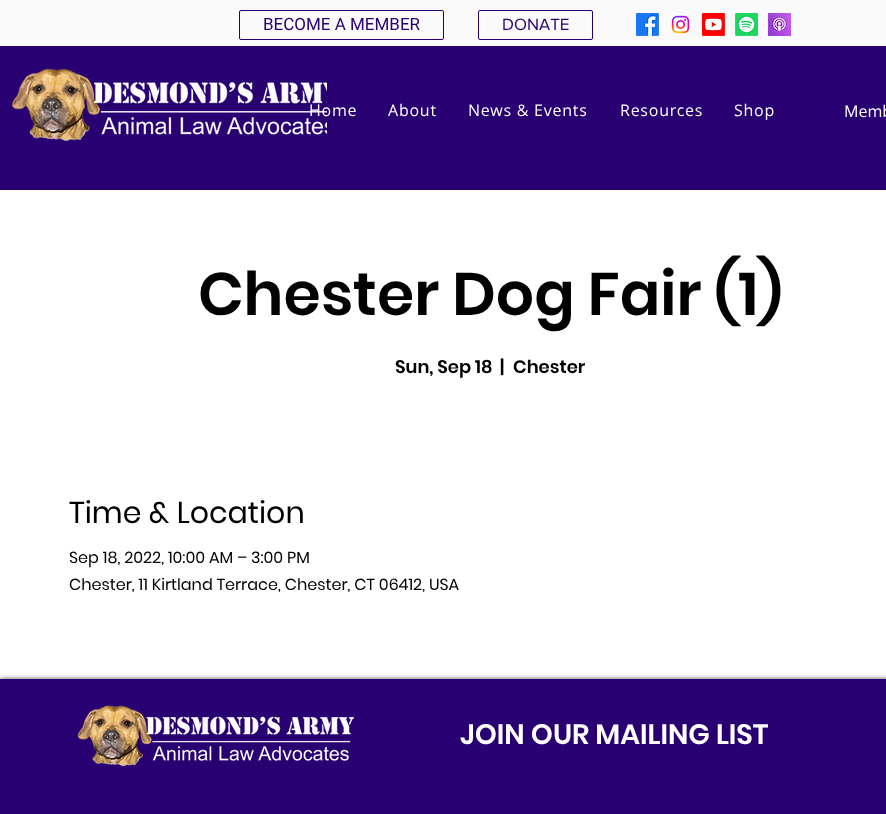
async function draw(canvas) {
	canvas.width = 886;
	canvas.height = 814;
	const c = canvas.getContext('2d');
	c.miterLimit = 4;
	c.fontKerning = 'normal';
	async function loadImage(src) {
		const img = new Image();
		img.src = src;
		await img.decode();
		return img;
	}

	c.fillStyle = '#fff';
	c.fillRect(0, 0, 886, 814);
	c.fillStyle = '#fafafa';
	c.fillRect(0, 0, 886, 46);
	c.beginPath();
	c.roundRect(239.5, 10.5, 204, 29, 1.5);
	c.strokeStyle = '#280071';
	c.stroke();
	c.font = '17px Roboto';
	c.fillStyle = '#2a0170';
	c.fillText('BECOME A MEMBER', 263, 30);
	c.beginPath();
	c.roundRect(478.5, 10.5, 114, 29, 1.5);
	c.stroke();
	c.font = '17px "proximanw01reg"';
	c.fillText('DONATE', 502, 30);
	c.drawImage(await loadImage('img1.png'), 636, 13, 23, 23);
	c.drawImage(await loadImage('img2.png'), 671, 15, 19, 19);
	c.drawImage(await loadImage('img3.png'), 702, 13, 23, 23);
	c.drawImage(await loadImage('img4.png'), 735, 13, 23, 23);
	c.drawImage(await loadImage('img5.png'), 768, 13, 23, 23);
	c.fillStyle = '#280071';
	c.fillRect(0, 54, 886, 136);
	c.drawImage(await loadImage('img6.png'), 11, 68, 316, 74);
	c.letterSpacing = '0.75px';
	c.font = '16px Open Sans';
	c.fillStyle = '#fff';
	for (const [text, x, y] of [
		['Home', 309, 116],
		['About', 388, 116],
		['News & Events', 468, 116],
		['Resources', 620, 116],
		['Shop', 734, 116],
	]) {
		c.fillText(text, x, y);
	}
	c.letterSpacing = '0px';
	c.fillText('Memb', 844, 117);
	c.fillStyle = '#280071';
	c.fillRect(0, 46, 886, 8);
	c.font = '600 60px Poppins';
	c.fillStyle = '#000';
	c.fillText('Chester Dog Fair (1)', 198, 315);
	c.font = '600 18px Poppins';
	for (const [text, x, y] of [
		['Sun, Sep 18', 395, 373],
		['|', 500, 373],
		['Chester', 513, 373],
	]) {
		c.fillText(text, x, y);
	}
	c.font = '30px Poppins';
	c.fillText('Time & Location', 69, 523);
	c.font = '16px Poppins';
	c.fillText('Sep 18, 2022, 10:00 AM – 3:00 PM', 69, 563);
	c.fillText('Chester, 11 Kirtland Terrace, Chester, CT 06412, USA', 69, 590);
	c.fillStyle = '#000000b3';
	c.filter = 'blur(2.5px)';
	c.beginPath();
	c.rect(0, 679, 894, 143);
	c.fill();
	c.filter = 'none';
	c.fillStyle = '#280071';
	c.fillRect(0, 679, 886, 135);
	c.drawImage(await loadImage('img7.png'), 77, 705, 277, 62);
	c.font = '600 28px Poppins';
	c.fillStyle = '#fff';
	c.fillText('JOIN OUR MAILING LIST', 460, 744);
}

draw(document.querySelector('canvas'));
